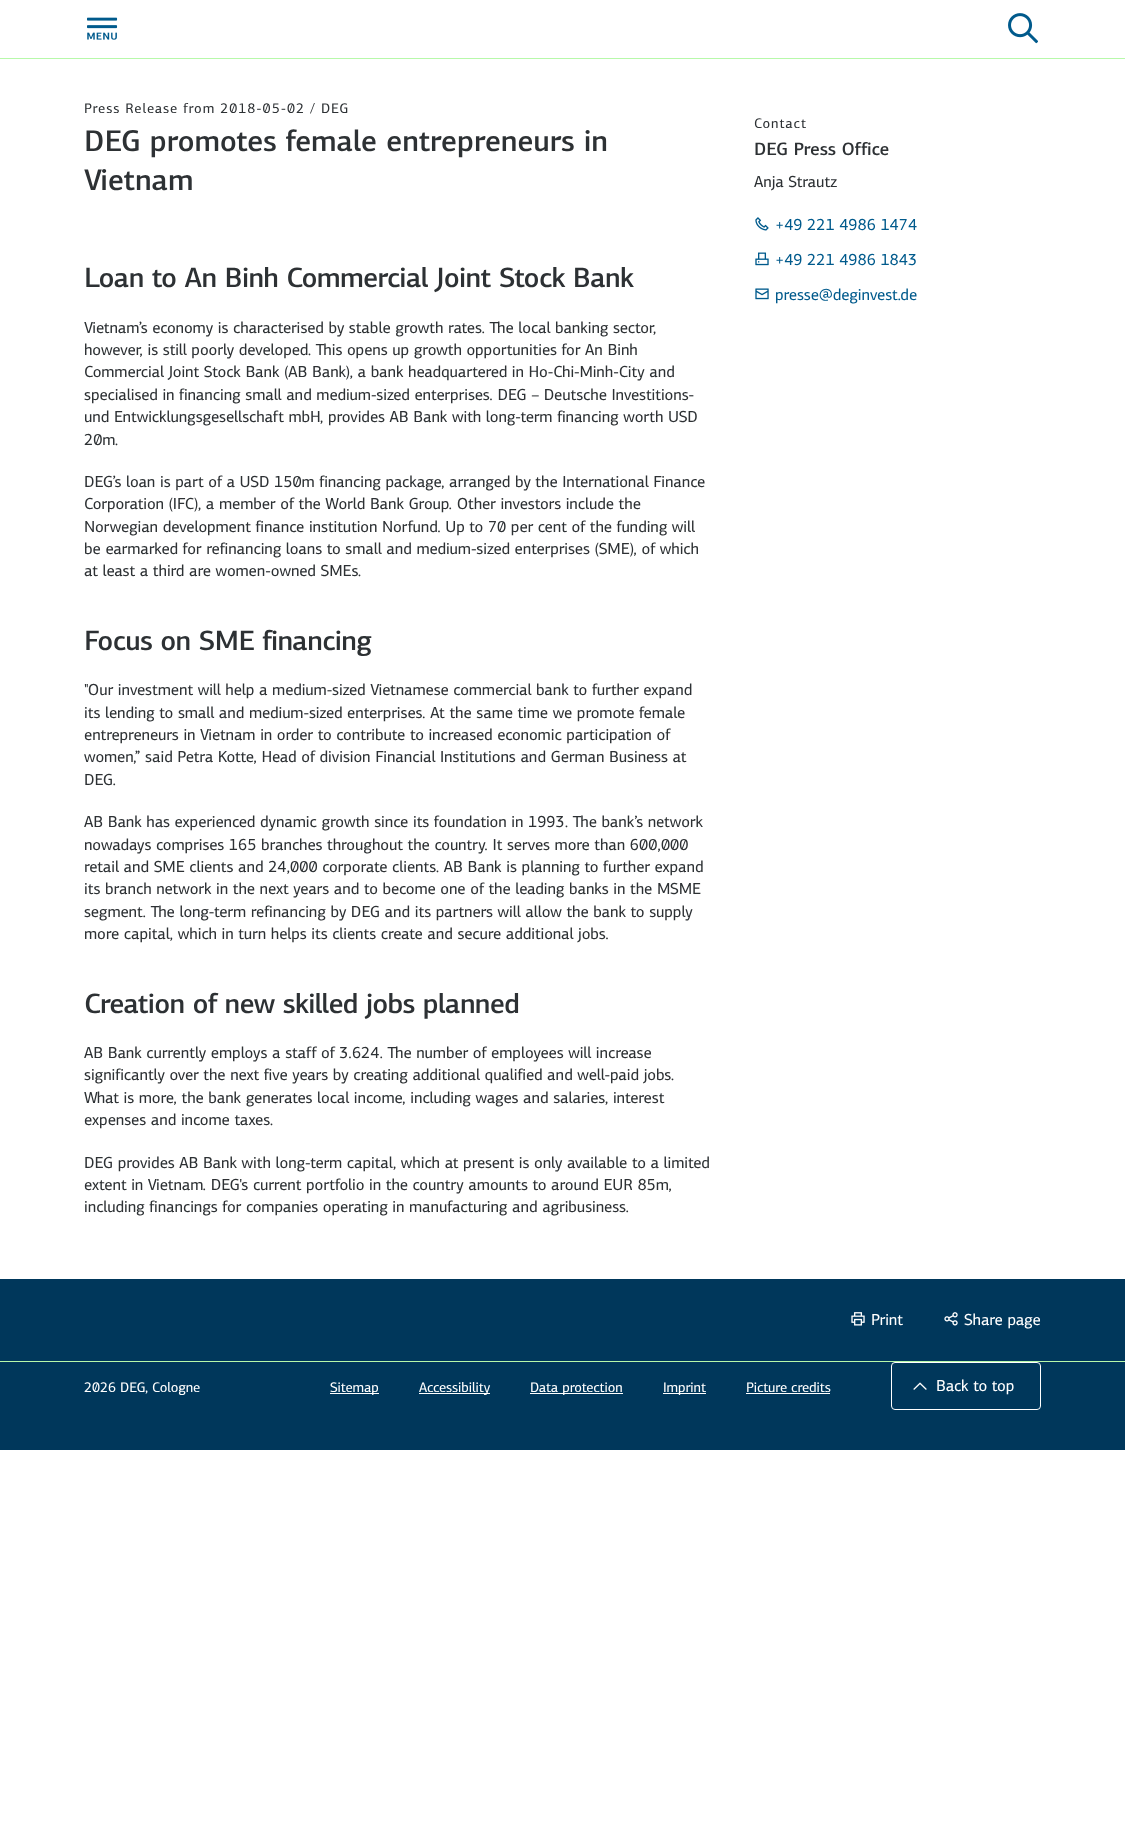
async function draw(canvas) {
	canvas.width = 1125;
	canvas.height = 1830;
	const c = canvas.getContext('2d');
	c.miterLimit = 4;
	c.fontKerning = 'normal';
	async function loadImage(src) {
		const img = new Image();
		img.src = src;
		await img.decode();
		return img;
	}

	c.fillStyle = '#fff';
	c.fillRect(0, 0, 1125, 1830);
	c.drawImage(await loadImage('img1.png'), 87, 17, 31, 23);
	c.drawImage(await loadImage('img2.png'), 1008, 13, 30, 31);
	c.fillStyle = '#b7f9aa';
	c.fillRect(0, 58, 1125, 1);
	c.letterSpacing = '1px';
	c.font = '14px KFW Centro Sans';
	c.fillStyle = '#2d3134';
	c.fillText('Press Release from 2018-05-02 / DEG', 84, 113);
	c.letterSpacing = '0px';
	c.font = '500 30px KFW Centro Sans';
	c.fillText('DEG promotes female entrepreneurs in', 84, 151);
	c.fillText('Vietnam', 84, 190);
	c.letterSpacing = '-0.5px';
	c.font = '500 28px KFW Centro Sans';
	c.fillText('Loan to An Binh Commercial Joint Stock Bank', 84, 287);
	c.letterSpacing = '0px';
	c.font = '16px KFW Centro Sans';
	for (const [text, x, y] of [
		['Vietnam’s economy is characterised by stable growth rates. The local banking sector,', 84, 333],
		['however, is still poorly developed. This opens up growth opportunities for An Binh', 84, 355],
		['Commercial Joint Stock Bank (AB Bank), a bank headquartered in Ho-Chi-Minh-City and', 84, 377],
		['specialised in financing small and medium-sized enterprises. DEG – Deutsche Investitions-', 84, 400],
		['und Entwicklungsgesellschaft mbH, provides AB Bank with long-term financing worth USD', 84, 422],
		['20m.', 84, 445],
		['DEG’s loan is part of a USD 150m financing package, arranged by the International Finance', 84, 487],
		['Corporation (IFC), a member of the World Bank Group. Other investors include the', 84, 509],
		['Norwegian development finance institution Norfund. Up to 70 per cent of the funding will', 84, 532],
		['be earmarked for refinancing loans to small and medium-sized enterprises (SME), of which', 84, 554],
		['at least a third are women-owned SMEs.', 84, 576],
	]) {
		c.fillText(text, x, y);
	}
	c.letterSpacing = '-0.5px';
	c.font = '500 28px KFW Centro Sans';
	c.fillText('Focus on SME financing', 84, 650);
	c.letterSpacing = '0px';
	c.font = '16px KFW Centro Sans';
	for (const [text, x, y] of [
		['"Our investment will help a medium-sized Vietnamese commercial bank to further expand', 84, 695],
		['its lending to small and medium-sized enterprises. At the same time we promote female', 84, 718],
		['entrepreneurs in Vietnam in order to contribute to increased economic participation of', 84, 740],
		['women,” said Petra Kotte, Head of division Financial Institutions and German Business at', 84, 762],
		['DEG.', 84, 785],
		['AB Bank has experienced dynamic growth since its foundation in 1993. The bank’s network', 84, 827],
		['nowadays comprises 165 branches throughout the country. It serves more than 600,000', 84, 850],
		['retail and SME clients and 24,000 corporate clients. AB Bank is planning to further expand', 84, 872],
		['its branch network in the next years and to become one of the leading banks in the MSME', 84, 894],
		['segment. The long-term refinancing by DEG and its partners will allow the bank to supply', 84, 917],
		['more capital, which in turn helps its clients create and secure additional jobs.', 84, 939],
	]) {
		c.fillText(text, x, y);
	}
	c.letterSpacing = '-0.5px';
	c.font = '500 28px KFW Centro Sans';
	c.fillText('Creation of new skilled jobs planned', 84, 1013);
	c.letterSpacing = '0px';
	c.font = '16px KFW Centro Sans';
	for (const [text, x, y] of [
		['AB Bank currently employs a staff of 3.624. The number of employees will increase', 84, 1058],
		['significantly over the next five years by creating additional qualified and well-paid jobs.', 84, 1080],
		['What is more, the bank generates local income, including wages and salaries, interest', 84, 1103],
		['expenses and income taxes.', 84, 1125],
		['DEG provides AB Bank with long-term capital, which at present is only available to a limited', 84, 1168],
		['extent in Vietnam. DEG\'s current portfolio in the country amounts to around EUR 85m,', 84, 1190],
		['including financings for companies operating in manufacturing and agribusiness.', 84, 1212],
	]) {
		c.fillText(text, x, y);
	}
	c.letterSpacing = '1px';
	c.font = '14px KFW Centro Sans';
	c.fillText('Contact', 754, 128);
	c.letterSpacing = '0px';
	c.font = '500 18px KFW Centro Sans';
	c.fillText('DEG Press Office', 754, 155);
	c.font = '16px KFW Centro Sans';
	c.fillText('Anja Strautz', 754, 187);
	c.drawImage(await loadImage('img3.png'), 755, 217, 14, 14);
	c.fillStyle = '#005a8c';
	c.fillText('+49 221 4986 1474', 775, 230);
	c.drawImage(await loadImage('img4.png'), 755, 252, 14, 14);
	c.fillText('+49 221 4986 1843', 775, 265);
	c.drawImage(await loadImage('img5.png'), 755, 288, 14, 12);
	c.fillText('presse@deginvest.de', 775, 300);
	c.fillStyle = '#00375b';
	c.fillRect(0, 1279, 1125, 171);
	c.drawImage(await loadImage('img6.png'), 851, 1312, 14, 14);
	c.fillStyle = '#fff';
	c.fillText('Print', 871, 1325);
	c.drawImage(await loadImage('img7.png'), 944, 1312, 14, 14);
	c.fillText('Share page', 964, 1325);
	c.fillStyle = '#b7f9aa';
	c.fillRect(0, 1361, 1125, 1);
	c.font = '14px KFW Centro Sans';
	c.fillStyle = '#fff';
	c.fillText('2026 DEG, Cologne', 84, 1392);
	c.fillRect(330, 1393, 49, 1);
	c.fillText('Sitemap', 330, 1392);
	c.fillRect(419, 1393, 71, 1);
	c.fillText('Accessibility', 419, 1392);
	c.fillRect(530, 1393, 93, 1);
	c.fillText('Data protection', 530, 1392);
	c.fillRect(663, 1393, 43, 1);
	c.fillText('Imprint', 663, 1392);
	c.fillText('Picture credits', 746, 1392);
	c.fillRect(746, 1393, 84, 1);
	c.beginPath();
	c.roundRect(891.5, 1362.5, 149, 47, 3.5);
	c.strokeStyle = '#fff';
	c.stroke();
	c.drawImage(await loadImage('img8.png'), 913, 1382, 14, 8);
	c.font = '16px KFW Centro Sans';
	c.fillText('Back to top', 936, 1391);
}

draw(document.querySelector('canvas'));
